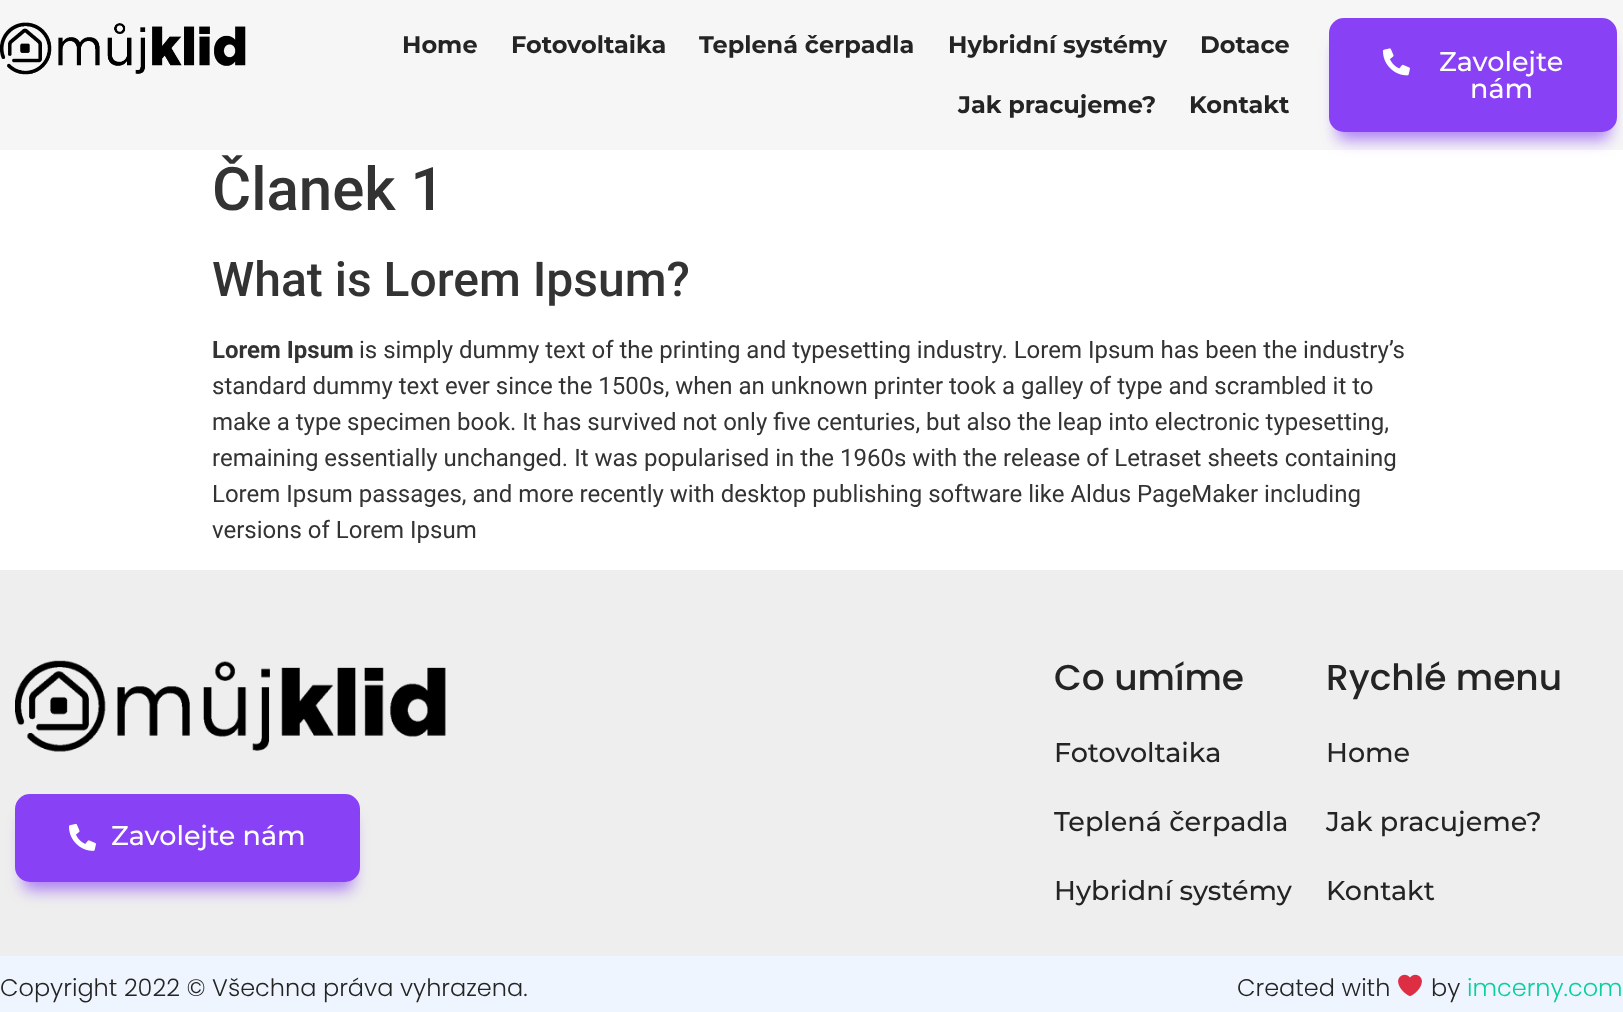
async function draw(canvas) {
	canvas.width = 1623;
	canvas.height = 1012;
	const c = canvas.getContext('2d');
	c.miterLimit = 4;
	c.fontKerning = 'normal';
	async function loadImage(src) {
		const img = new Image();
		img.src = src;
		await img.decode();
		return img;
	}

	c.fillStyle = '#fff';
	c.fillRect(0, 0, 1623, 1012);
	c.fillStyle = '#f6f6f6';
	c.fillRect(0, 0, 1623, 150);
	c.drawImage(await loadImage('img1.png'), 0, 22, 246, 53);
	c.font = 'bold 24px Montserrat';
	c.fillStyle = '#242424';
	for (const [text, x, y] of [
		['Home', 402, 53],
		['Fotovoltaika', 511, 53],
		['Teplená čerpadla', 699, 53],
		['Hybridní systémy', 948, 53],
		['Dotace', 1200, 53],
		['Jak pracujeme?', 958, 113],
		['Kontakt', 1189, 113],
	]) {
		c.fillText(text, x, y);
	}
	c.fillStyle = '#8841f5a3';
	c.filter = 'blur(7.5px)';
	c.beginPath();
	c.roundRect(1337, 41, 273, 99, 8);
	c.fill();
	c.filter = 'none';
	c.fillStyle = '#8841f5';
	c.beginPath();
	c.roundRect(1329, 18, 288, 114, 15);
	c.fill();
	c.drawImage(await loadImage('img2.png'), 1383, 48, 27, 28);
	c.font = '500 27px Montserrat';
	c.fillStyle = '#fff';
	c.fillText('Zavolejte', 1439, 71);
	c.fillText('nám', 1470, 98);
	c.font = '500 60px Roboto';
	c.fillStyle = '#333';
	c.fillText('Članek 1', 212, 210);
	c.font = '500 48px Roboto';
	c.fillText('What is Lorem Ipsum?', 212, 296);
	c.font = 'bold 24px Roboto';
	c.fillText('Lorem Ipsum', 212, 358);
	c.font = '24px Roboto';
	for (const [text, x, y] of [
		['is simply dummy text of the printing and typesetting industry. Lorem Ipsum has been the industry’s', 359, 358],
		['standard dummy text ever since the 1500s, when an unknown printer took a galley of type and scrambled it to', 212, 394],
		['make a type specimen book. It has survived not only five centuries, but also the leap into electronic typesetting,', 212, 430],
		['remaining essentially unchanged. It was popularised in the 1960s with the release of Letraset sheets containing', 212, 466],
		['Lorem Ipsum passages, and more recently with desktop publishing software like Aldus PageMaker including', 212, 502],
		['versions of Lorem Ipsum', 212, 538],
	]) {
		c.fillText(text, x, y);
	}
	c.fillStyle = '#eee';
	c.fillRect(0, 570, 1623, 386);
	c.drawImage(await loadImage('img3.png'), 15, 660, 431, 92);
	c.fillStyle = '#8841f5a3';
	c.filter = 'blur(7.5px)';
	c.beginPath();
	c.roundRect(23, 816, 330, 74, 8);
	c.fill();
	c.filter = 'none';
	c.fillStyle = '#8841f5';
	c.beginPath();
	c.roundRect(15, 794, 345, 88, 15);
	c.fill();
	c.drawImage(await loadImage('img4.png'), 69, 823, 27, 28);
	c.font = '500 27px Montserrat';
	c.fillStyle = '#fff';
	c.fillText('Zavolejte nám', 111, 845);
	c.font = '500 36px Poppins';
	c.fillStyle = '#242424';
	c.fillText('Co umíme', 1054, 690);
	c.font = '500 27px Montserrat';
	for (const [text, x, y] of [
		['Fotovoltaika', 1054, 762],
		['Teplená čerpadla', 1054, 831],
		['Hybridní systémy', 1054, 900],
	]) {
		c.fillText(text, x, y);
	}
	c.font = '500 36px Poppins';
	c.fillText('Rychlé menu', 1326, 690);
	c.font = '500 27px Montserrat';
	for (const [text, x, y] of [
		['Home', 1326, 762],
		['Jak pracujeme?', 1326, 831],
		['Kontakt', 1326, 900],
	]) {
		c.fillText(text, x, y);
	}
	c.fillStyle = '#eff5fe';
	c.fillRect(0, 956, 1623, 56);
	c.font = '300 24px Poppins';
	c.fillStyle = '#242424';
	c.fillText('Copyright 2022 © Všechna práva vyhrazena.', 0, 996);
	c.fillText('Created with', 1237, 996);
	c.drawImage(await loadImage('img5.png'), 1398, 974, 24, 23);
	c.fillText('by', 1431, 996);
	c.fillStyle = '#08cf9f';
	c.fillText('imcerny.com', 1467, 996);
}

draw(document.querySelector('canvas'));
